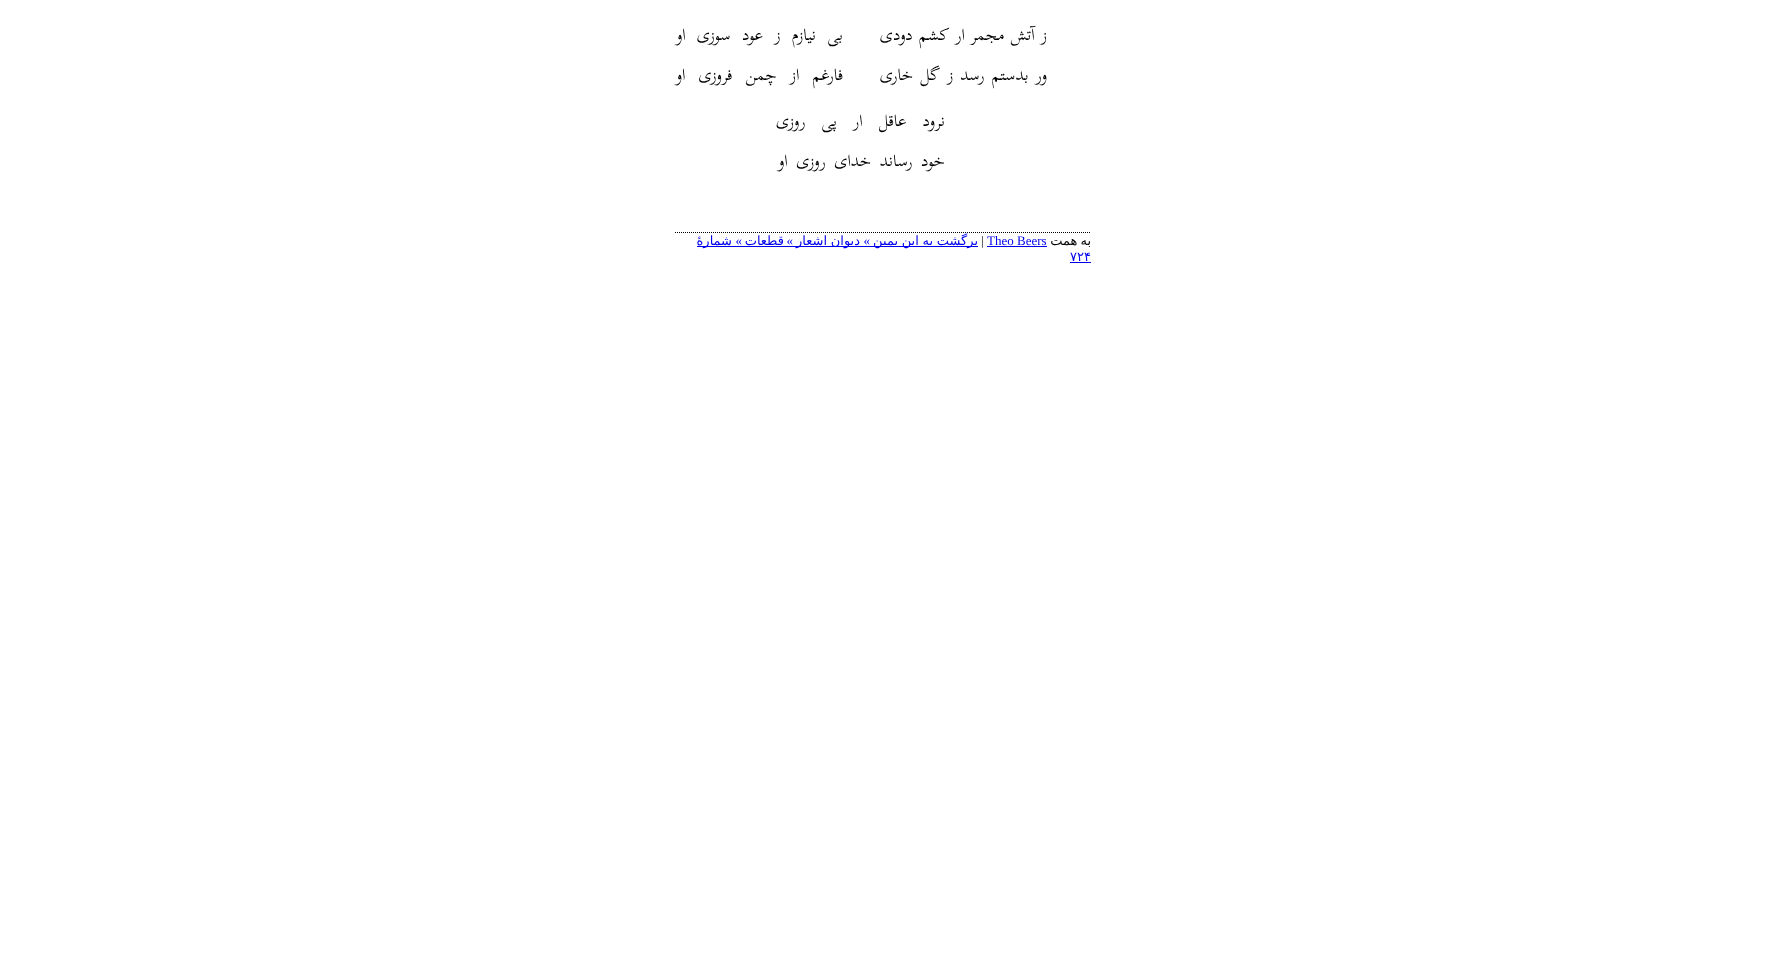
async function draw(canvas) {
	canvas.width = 1766;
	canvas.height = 978;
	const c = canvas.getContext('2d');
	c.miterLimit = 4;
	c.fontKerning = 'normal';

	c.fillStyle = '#fff';
	c.fillRect(0, 0, 1766, 978);
	c.direction = 'rtl';
	c.font = '24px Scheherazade';
	c.fillStyle = '#000';
	c.fillText('ز آتش مجمر ار کشم دودی', 1047, 40);
	c.wordSpacing = '5.25px';
	c.fillText('بی نیازم ز عود سوزی او', 843, 40);
	c.wordSpacing = '1px';
	c.fillText('ور بدستم رسد ز گل خاری', 1047, 80);
	c.wordSpacing = '7px';
	c.fillText('فارغم از چمن فروزی او', 843, 80);
	c.wordSpacing = '10px';
	c.fillText('نرود عاقل ار پی روزی', 945, 126);
	c.wordSpacing = '2.5px';
	c.fillText('خود رساند خدای روزی او', 945, 166);
	c.beginPath();
	c.moveTo(675, 232.5);
	c.lineTo(1091, 232.5);
	c.strokeStyle = '#000';
	c.setLineDash([1, 1]);
	c.stroke();
	c.wordSpacing = '-1px';
	c.font = '13px DejaVu Sans';
	c.fillText('به همت', 1091, 245);
	c.wordSpacing = '0px';
	c.direction = 'ltr';
	c.font = '13px Liberation Serif';
	c.fillStyle = '#00e';
	c.fillText('Theo Beers', 987, 245);
	c.fillRect(987, 246, 60, 1);
	c.fillStyle = '#000';
	c.fillText('|', 981, 245);
	c.fillStyle = '#00e';
	c.fillRect(697, 246, 281, 1);
	c.wordSpacing = '-0.5px';
	c.direction = 'rtl';
	c.font = '13px DejaVu Sans';
	c.fillText('برگشت به ابن یمین', 978, 245);
	c.wordSpacing = '0px';
	c.font = '13px Liberation Serif';
	c.fillText('»', 870, 245);
	c.wordSpacing = '-0.5px';
	c.font = '13px DejaVu Sans';
	c.fillText('دیوان اشعار', 860, 245);
	c.wordSpacing = '0px';
	c.font = '13px Liberation Serif';
	c.fillText('»', 793, 245);
	c.font = '13px DejaVu Sans';
	c.fillText('قطعات', 784, 245);
	c.font = '13px Liberation Serif';
	c.fillText('»', 742, 245);
	c.font = '13px DejaVu Sans';
	c.fillText('شمارهٔ', 732, 245);
	c.direction = 'ltr';
	c.fillText('٧٢۴', 1070, 261);
	c.fillRect(1070, 262, 21, 1);
}

draw(document.querySelector('canvas'));
